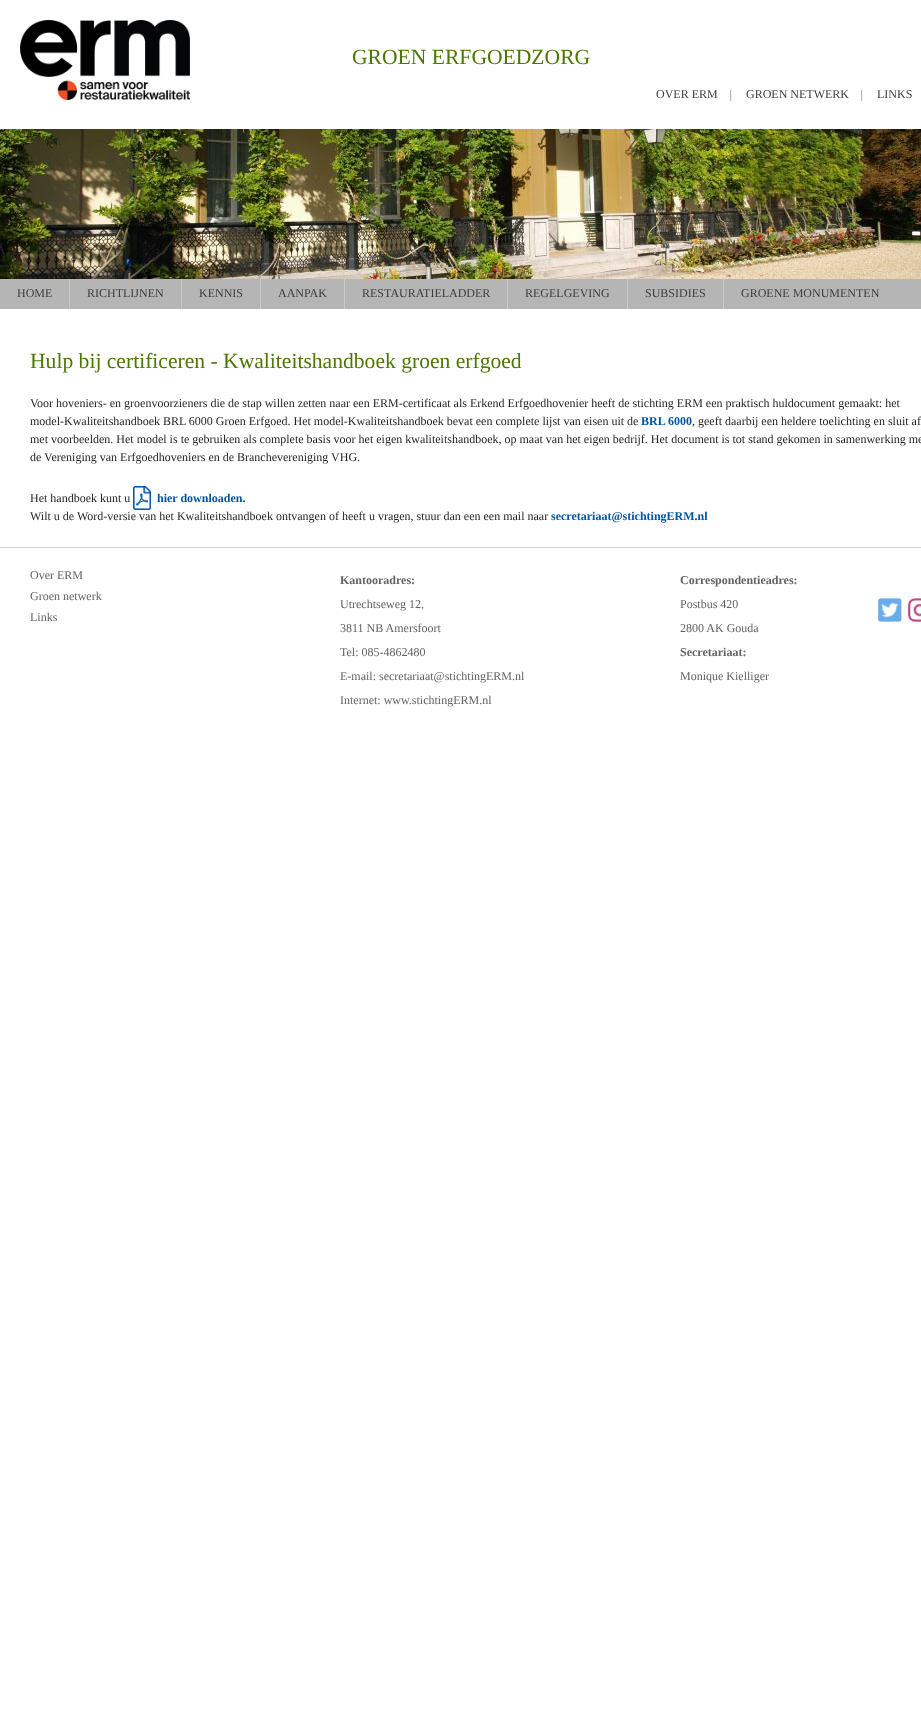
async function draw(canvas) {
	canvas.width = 921;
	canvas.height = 1726;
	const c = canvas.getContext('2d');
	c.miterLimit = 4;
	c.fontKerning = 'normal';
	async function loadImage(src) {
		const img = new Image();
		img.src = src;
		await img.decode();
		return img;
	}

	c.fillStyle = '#fff';
	c.fillRect(0, 0, 921, 1726);
	c.drawImage(await loadImage('img1.png'), 20, 20, 170, 80);
	c.font = '21.6px Liberation Serif';
	c.fillStyle = '#4c7700';
	c.fillText('GROEN ERFGOEDZORG', 352, 64);
	c.drawImage(await loadImage('img2.png'), 730, 90, 2, 11);
	c.font = '12px Liberation Serif';
	c.fillStyle = '#3c3c3c';
	c.fillText('OVER ERM', 656, 98);
	c.drawImage(await loadImage('img2.png'), 861, 90, 2, 11);
	c.fillText('GROEN NETWERK', 746, 98);
	c.fillText('LINKS', 877, 98);
	c.drawImage(await loadImage('img3.png'), 0, 129, 921, 150);
	c.fillStyle = '#b5b5b5';
	c.fillRect(0, 279, 921, 30);
	c.fillStyle = '#cbcbcb';
	c.fillRect(69, 279, 1, 30);
	c.fillStyle = '#3c3c3c';
	c.fillText('HOME', 17, 297);
	c.fillStyle = '#cbcbcb';
	c.fillRect(181, 279, 1, 30);
	c.fillStyle = '#3c3c3c';
	c.fillText('RICHTLIJNEN', 87, 297);
	c.fillStyle = '#cbcbcb';
	c.fillRect(260, 279, 1, 30);
	c.fillStyle = '#3c3c3c';
	c.fillText('KENNIS', 199, 297);
	c.fillStyle = '#cbcbcb';
	c.fillRect(344, 279, 1, 30);
	c.fillStyle = '#3c3c3c';
	c.fillText('AANPAK', 278, 297);
	c.fillStyle = '#cbcbcb';
	c.fillRect(507, 279, 1, 30);
	c.fillStyle = '#3c3c3c';
	c.fillText('RESTAURATIELADDER', 362, 297);
	c.fillStyle = '#cbcbcb';
	c.fillRect(627, 279, 1, 30);
	c.fillStyle = '#3c3c3c';
	c.fillText('REGELGEVING', 525, 297);
	c.fillStyle = '#cbcbcb';
	c.fillRect(723, 279, 1, 30);
	c.fillStyle = '#3c3c3c';
	c.fillText('SUBSIDIES', 645, 297);
	c.fillText('GROENE MONUMENTEN', 741, 297);
	c.font = '21.6px Liberation Serif';
	c.fillStyle = '#4c7700';
	c.fillText('Hulp bij certificeren - Kwaliteitshandboek groen erfgoed', 30, 368);
	c.font = '12px Liberation Serif';
	c.fillStyle = '#231f20';
	c.fillText('Voor hoveniers- en groenvoorzieners die de stap willen zetten naar een ERM-certificaat als Erkend Erfgoedhovenier heeft de stichting ERM een praktisch huldocument gemaakt: het', 30, 407);
	c.fillText('model-Kwaliteitshandboek BRL 6000 Groen Erfgoed. Het model-Kwaliteitshandboek bevat een complete lijst van eisen uit de', 30, 425);
	c.font = 'bold 12px Liberation Serif';
	c.fillStyle = '#0054a3';
	c.fillText('BRL 6000', 641, 425);
	c.font = '12px Liberation Serif';
	c.fillStyle = '#231f20';
	for (const [text, x, y] of [
		[', geeft daarbij een heldere toelichting en sluit af', 692, 425],
		['met voorbeelden. Het model is te gebruiken als complete basis voor het eigen kwaliteitshandboek, op maat van het eigen bedrijf. Het document is tot stand gekomen in samenwerking me', 30, 443],
		['de Vereniging van Erfgoedhoveniers en de Branchevereniging VHG.', 30, 461],
		['Het handboek kunt u', 30, 502],
	]) {
		c.fillText(text, x, y);
	}
	c.drawImage(await loadImage('img4.png'), 133, 486, 18, 24);
	c.font = 'bold 12px Liberation Serif';
	c.fillStyle = '#0054a3';
	c.fillText('hier downloaden.', 157, 502);
	c.font = '12px Liberation Serif';
	c.fillStyle = '#231f20';
	c.fillText('Wilt u de Word-versie van het Kwaliteitshandboek ontvangen of heeft u vragen, stuur dan een een mail naar', 30, 520);
	c.font = 'bold 12px Liberation Serif';
	c.fillStyle = '#0054a3';
	c.fillText('secretariaat@stichtingERM.nl', 551, 520);
	c.fillStyle = '#d3d3d3';
	c.fillRect(0, 547, 921, 1);
	c.font = '12px Liberation Serif';
	c.fillStyle = '#636363';
	for (const [text, x, y] of [
		['Over ERM', 30, 579],
		['Groen netwerk', 30, 600],
		['Links', 30, 621],
	]) {
		c.fillText(text, x, y);
	}
	c.font = 'bold 12px Liberation Serif';
	c.fillText('Kantooradres:', 340, 584);
	c.font = '12px Liberation Serif';
	for (const [text, x, y] of [
		['Utrechtseweg 12,', 340, 608],
		['3811 NB Amersfoort', 340, 632],
		['Tel: 085-4862480', 340, 656],
		['E-mail: secretariaat@stichtingERM.nl', 340, 680],
		['Internet: www.stichtingERM.nl', 340, 704],
	]) {
		c.fillText(text, x, y);
	}
	c.font = 'bold 12px Liberation Serif';
	c.fillText('Correspondentieadres:', 680, 584);
	c.font = '12px Liberation Serif';
	c.fillText('Postbus 420', 680, 608);
	c.fillText('2800 AK Gouda', 680, 632);
	c.font = 'bold 12px Liberation Serif';
	c.fillText('Secretariaat:', 680, 656);
	c.font = '12px Liberation Serif';
	c.fillText('Monique Kielliger', 680, 680);
	c.drawImage(await loadImage('img5.png'), 878, 598, 24, 24);
	c.drawImage(await loadImage('img6.png'), 908, 598, 13, 24);
}

draw(document.querySelector('canvas'));
